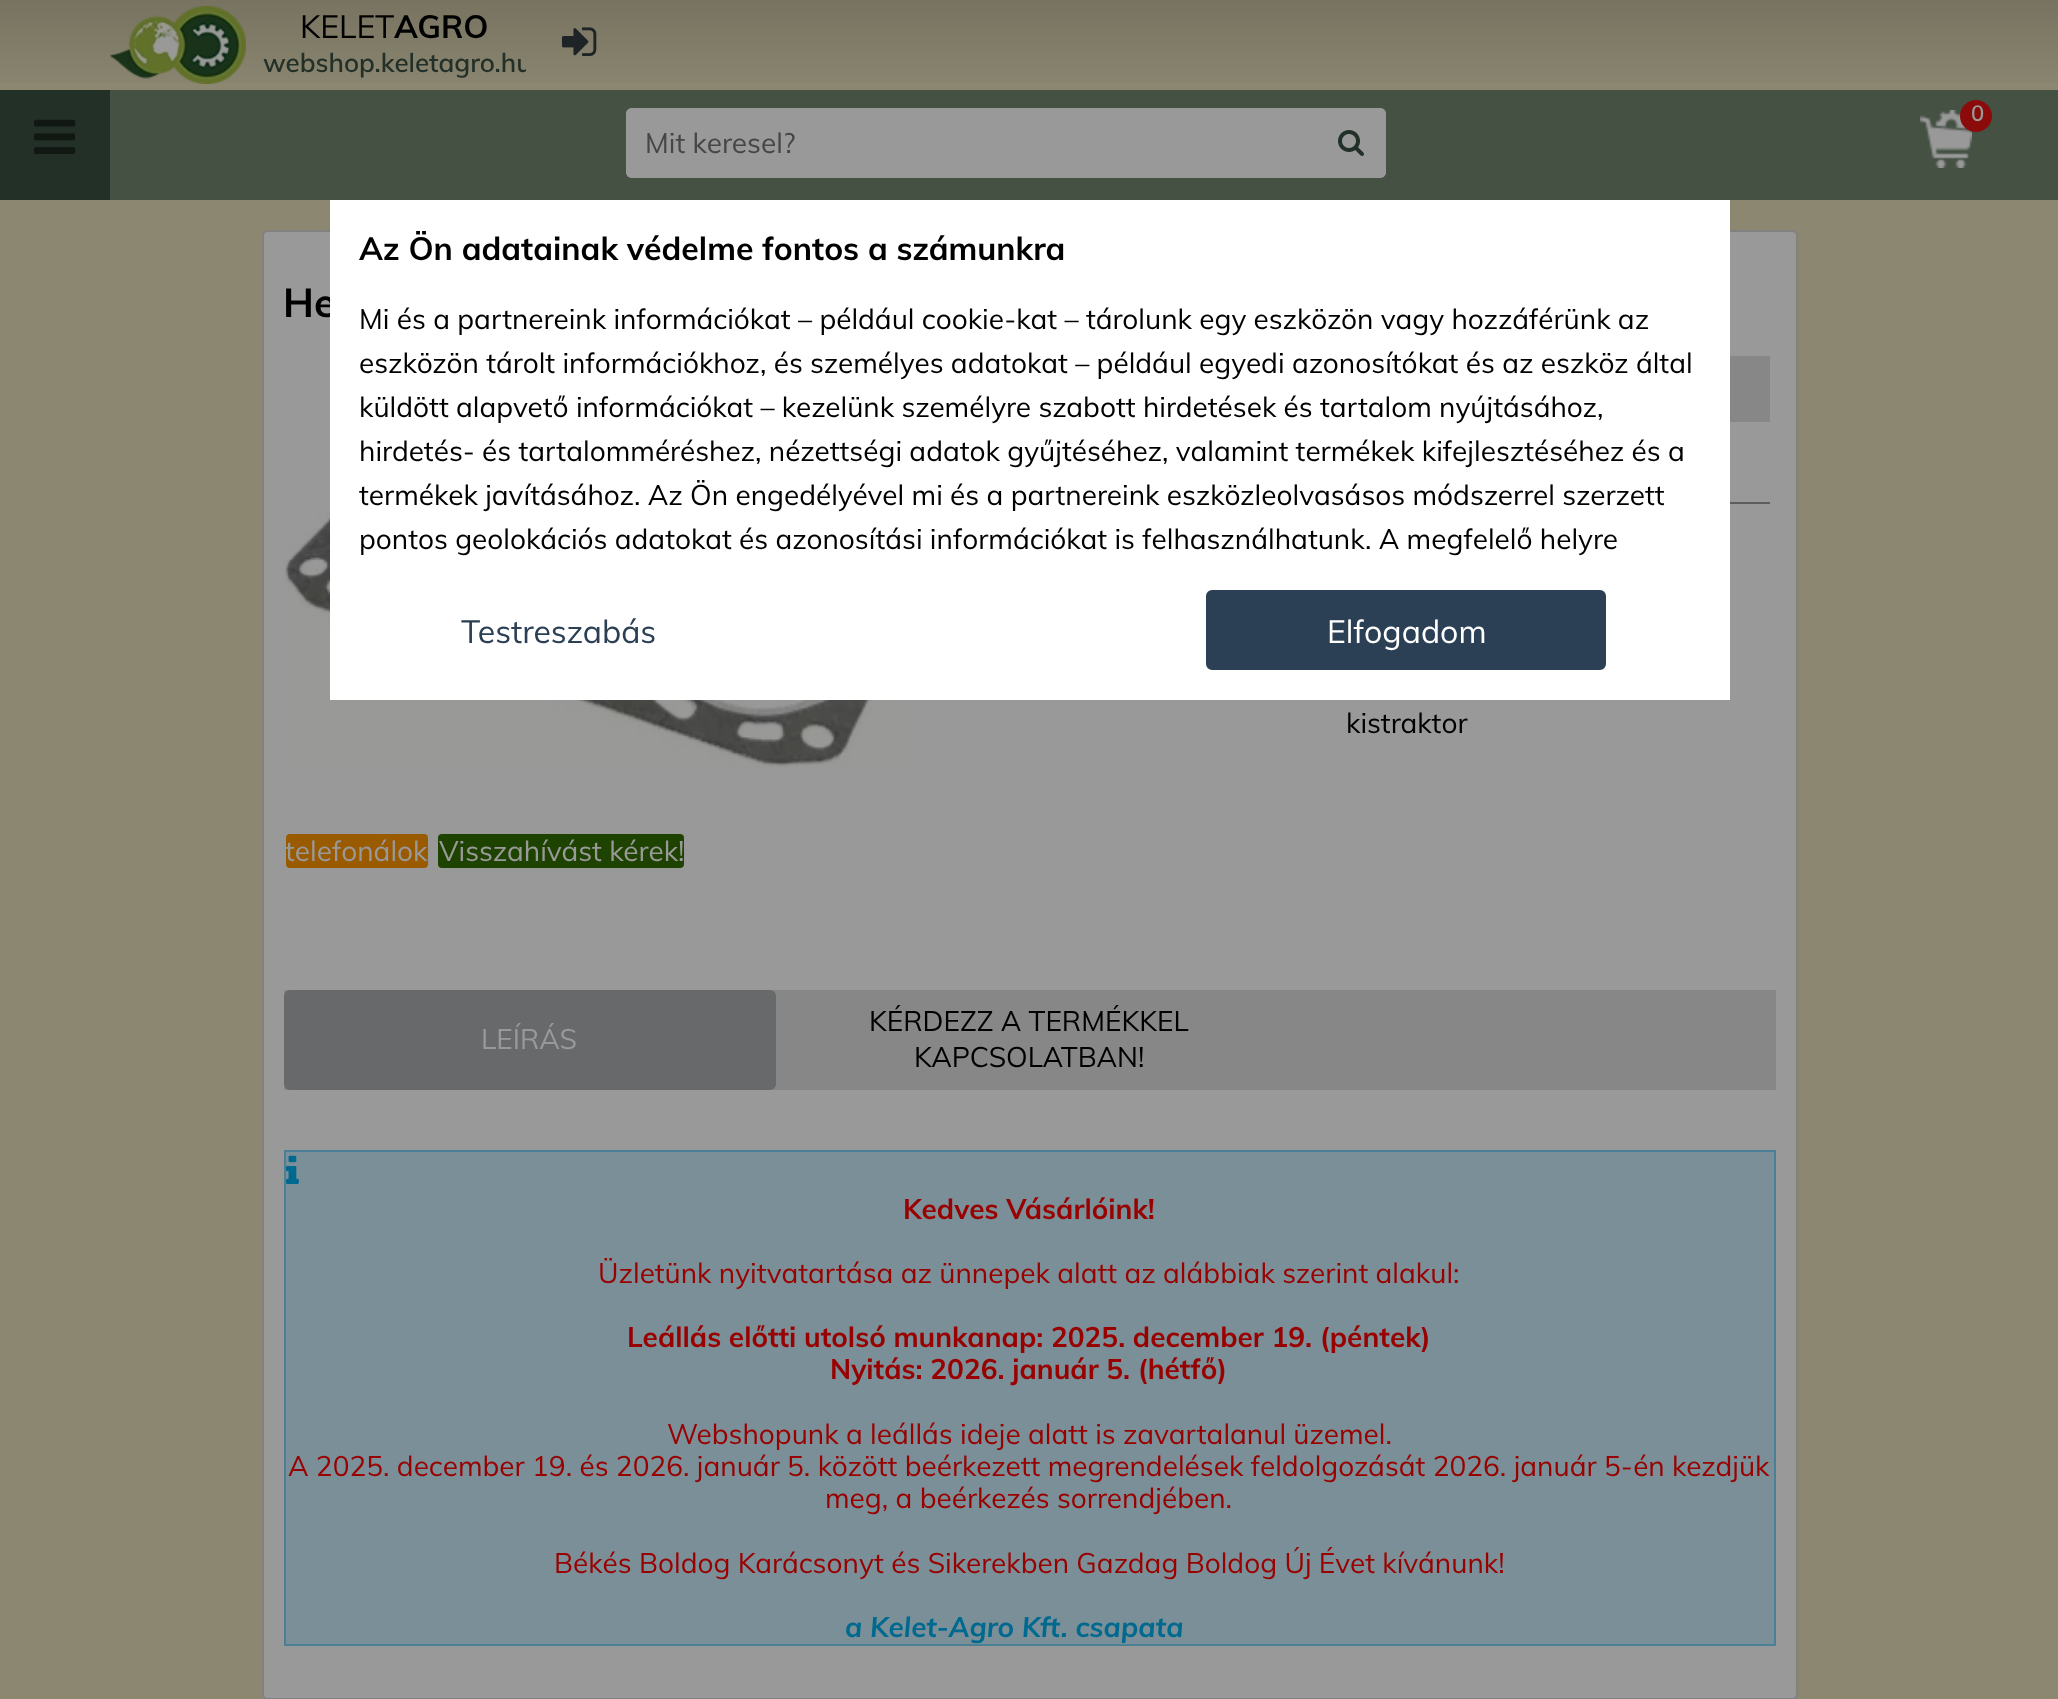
async function draw(canvas) {
	canvas.width = 2058;
	canvas.height = 1699;
	const c = canvas.getContext('2d');
	c.miterLimit = 4;
	c.fontKerning = 'normal';
	async function loadImage(src) {
		const img = new Image();
		img.src = src;
		await img.decode();
		return img;
	}
	let gradient;

	c.fillStyle = '#8c8771';
	c.fillRect(0, 0, 2058, 1699);
	gradient = c.createLinearGradient(1029, 0, 1029, 90);
	gradient.addColorStop(0, '#777360');
	gradient.addColorStop(1, '#8b8671');
	c.fillStyle = gradient;
	c.fillRect(0, 0, 2058, 83);
	c.drawImage(await loadImage('img1.png'), 110, 6, 136, 78);
	c.font = '32px Muli';
	c.fillStyle = '#000';
	c.fillText('KELET', 300, 38);
	c.font = 'bold 32px Muli';
	c.fillText('AGRO', 394, 38);
	c.save();
	c.beginPath();
	c.rect(256, 0, 270, 90);
	c.clip();
	c.font = '600 26px Muli';
	c.fillStyle = '#233028';
	c.fillText('webshop.keletagro.hu', 263, 72);
	c.restore();
	c.drawImage(await loadImage('img2.png'), 562, 27, 35, 29);
	c.fillStyle = '#445143';
	c.fillRect(110, 90, 1948, 110);
	c.fillStyle = '#233028';
	c.fillRect(0, 90, 110, 110);
	c.drawImage(await loadImage('img3.png'), 34, 119, 42, 35);
	c.drawImage(await loadImage('img4.png'), 1920, 110, 52, 58);
	c.fillStyle = '#8b0a0a';
	c.beginPath();
	c.arc(1976, 116, 16, 0, 2 * Math.PI);
	c.fill();
	c.font = '600 22px Muli';
	c.fillStyle = '#999';
	c.fillText('0', 1971, 121);
	c.beginPath();
	c.roundRect(626, 108, 760, 70, 6);
	c.fill();
	c.beginPath();
	c.roundRect(626, 108, 690, 70, 6);
	c.fill();
	c.font = '28px Muli';
	c.fillStyle = '#464646';
	c.fillText('Mit keresel?', 645, 153);
	c.fillStyle = '#999';
	c.beginPath();
	c.roundRect(1316, 108, 70, 70, 6);
	c.fill();
	c.drawImage(await loadImage('img5.png'), 1338, 130, 26, 26);
	c.beginPath();
	c.roundRect(263, 231, 1534, 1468, 5);
	c.fill();
	c.strokeStyle = '#818181';
	c.lineWidth = 2;
	c.stroke();
	c.font = 'bold 40px Muli';
	c.fillStyle = '#000';
	c.fillText('He', 283, 317);
	c.drawImage(await loadImage('img6.png'), 284, 436, 620, 332);
	c.fillStyle = '#fff';
	c.fillRect(330, 200, 1400, 500);
	c.font = 'bold 32px Muli';
	c.fillStyle = '#000';
	c.fillText('Az Ön adatainak védelme fontos a számunkra', 359, 260);
	c.font = '28px Muli';
	for (const [text, x, y] of [
		['Mi és a partnereink információkat – például cookie-kat – tárolunk egy eszközön vagy hozzáférünk az', 359, 329],
		['eszközön tárolt információkhoz, és személyes adatokat – például egyedi azonosítókat és az eszköz által', 359, 373],
		['küldött alapvető információkat – kezelünk személyre szabott hirdetések és tartalom nyújtásához,', 359, 417],
		['hirdetés- és tartalomméréshez, nézettségi adatok gyűjtéséhez, valamint termékek kifejlesztéséhez és a', 359, 461],
		['termékek javításához. Az Ön engedélyével mi és a partnereink eszközleolvasásos módszerrel szerzett', 359, 505],
		['pontos geolokációs adatokat és azonosítási információkat is felhasználhatunk. A megfelelő helyre', 359, 549],
	]) {
		c.fillText(text, x, y);
	}
	c.font = '32px Muli';
	c.fillStyle = '#2c4055';
	c.fillText('Testreszabás', 461, 643);
	c.beginPath();
	c.roundRect(1207, 591, 398, 78, 5);
	c.fill();
	c.strokeStyle = '#2c4055';
	c.stroke();
	c.fillStyle = '#fff';
	c.fillText('Elfogadom', 1327, 643);
	c.fillStyle = '#878787';
	c.fillRect(1730, 356, 40, 66);
	c.fillStyle = '#5c5e5f';
	c.fillRect(1730, 502, 40, 2);
	c.font = '28px Muli';
	c.fillStyle = '#000';
	c.fillText('kistraktor', 1346, 733);
	c.fillStyle = '#995a00';
	c.beginPath();
	c.roundRect(285, 833, 144, 36, 5);
	c.fill();
	c.strokeStyle = '#999';
	c.stroke();
	c.fillStyle = '#999';
	c.fillText('telefonálok', 285, 861);
	c.fillStyle = '#1e4300';
	c.beginPath();
	c.roundRect(437, 833, 248, 36, 5);
	c.fill();
	c.stroke();
	c.fillStyle = '#999';
	c.fillText('Visszahívást kérek!', 439, 861);
	c.fillStyle = '#878787';
	c.fillRect(284, 990, 1492, 100);
	c.fillStyle = '#68696a';
	c.beginPath();
	c.roundRect(284, 990, 492, 100, 6);
	c.fill();
	c.fillStyle = '#999';
	c.fillText('LEÍRÁS', 481, 1049);
	c.fillStyle = '#000';
	c.fillText('KÉRDEZZ A TERMÉKKEL', 869, 1031);
	c.fillText('KAPCSOLATBAN!', 914, 1067);
	c.fillStyle = '#7a8f97';
	c.beginPath();
	c.rect(285, 1151, 1490, 494);
	c.fill();
	c.strokeStyle = '#4a8095';
	c.stroke();
	c.drawImage(await loadImage('img7.png'), 286, 1155, 13, 29);
	c.font = 'bold 28px Muli';
	c.fillStyle = '#900';
	c.fillText('Kedves Vásárlóink!', 903, 1219);
	c.font = '28px Muli';
	c.fillText('Üzletünk nyitvatartása az ünnepek alatt az alábbiak szerint alakul:', 598, 1283);
	c.font = 'bold 28px Muli';
	c.fillText('Leállás előtti utolsó munkanap: 2025. december 19. (péntek)', 627, 1347);
	c.fillText('Nyitás: 2026. január 5. (hétfő)', 830, 1379);
	c.font = '28px Muli';
	for (const [text, x, y] of [
		['Webshopunk a leállás ideje alatt is zavartalanul üzemel.', 667, 1444],
		['A 2025. december 19. és 2026. január 5. között beérkezett megrendelések feldolgozását 2026. január 5-én kezdjük', 288, 1476],
		['meg, a beérkezés sorrendjében.', 825, 1508],
		['Békés Boldog Karácsonyt és Sikerekben Gazdag Boldog Új Évet kívánunk!', 554, 1573],
	]) {
		c.fillText(text, x, y);
	}
	c.font = 'italic bold 28px Muli';
	c.fillStyle = '#006990';
	c.fillText('a Kelet-Agro Kft. csapata', 845, 1637);
}

draw(document.querySelector('canvas'));
